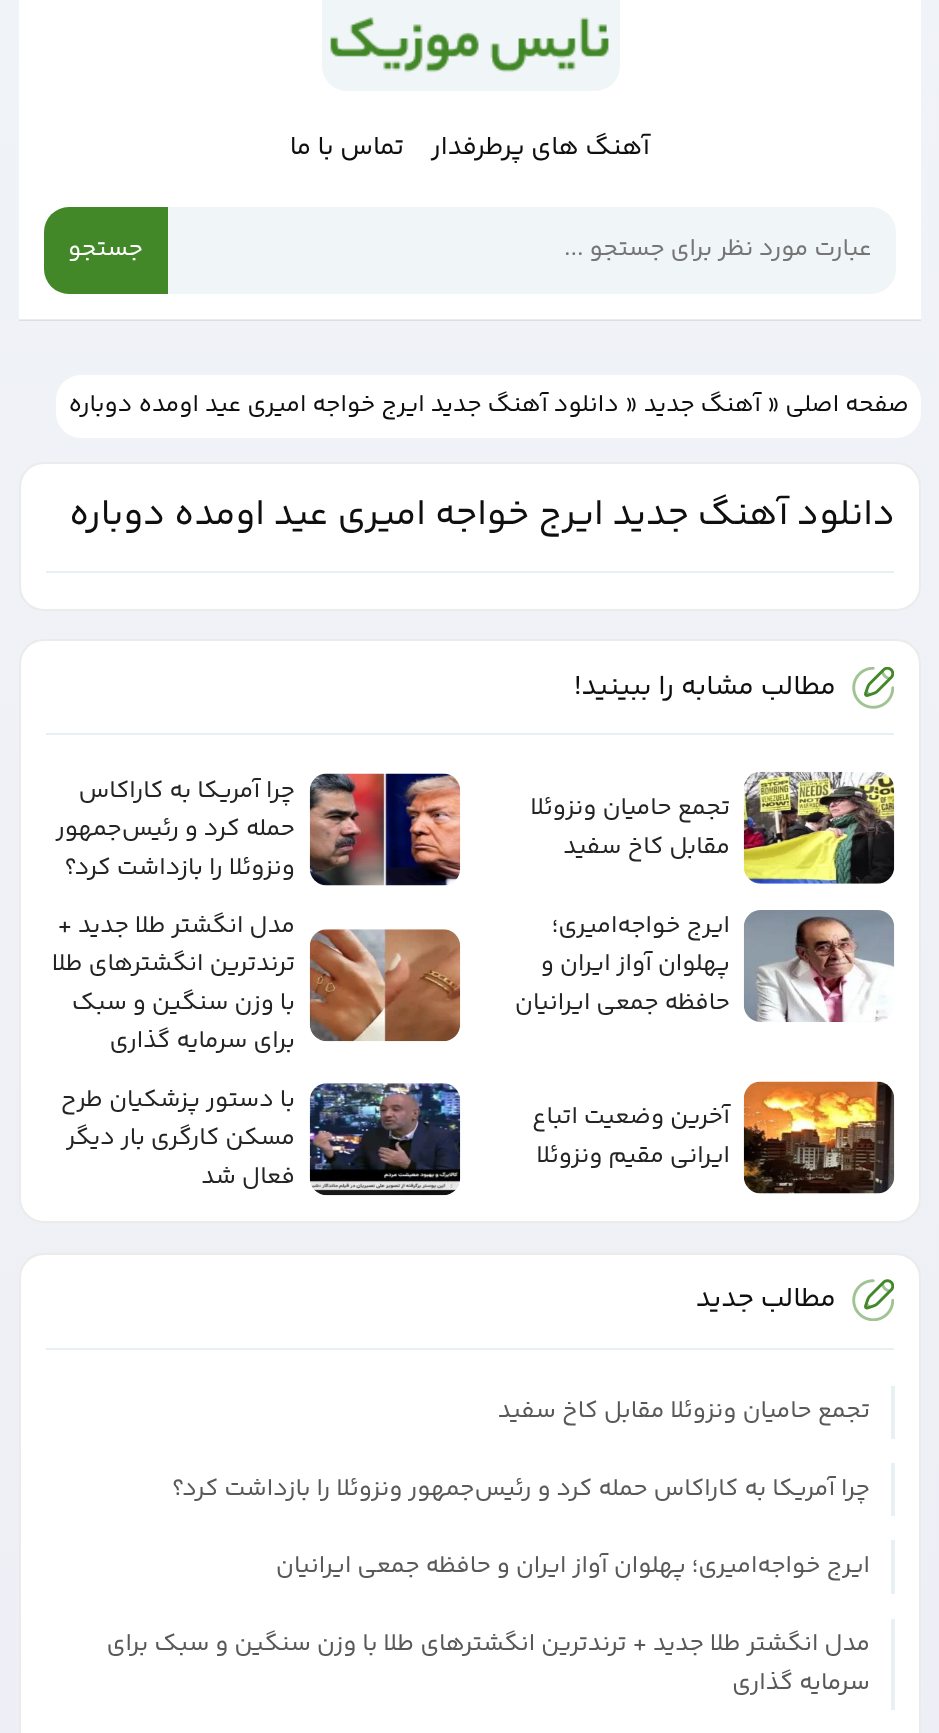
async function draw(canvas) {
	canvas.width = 939;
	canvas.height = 1733;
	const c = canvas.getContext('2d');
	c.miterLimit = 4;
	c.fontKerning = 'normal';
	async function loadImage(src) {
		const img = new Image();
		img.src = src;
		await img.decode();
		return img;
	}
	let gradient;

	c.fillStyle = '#fff';
	c.fillRect(0, 0, 939, 1733);
	gradient = c.createLinearGradient(470, 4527, 470, 0);
	gradient.addColorStop(0, '#eae9f4');
	gradient.addColorStop(1, '#f0f3f7');
	c.fillStyle = gradient;
	c.fillRect(0, 0, 939, 1733);
	gradient = c.createLinearGradient(470, 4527, 470, 0);
	gradient.addColorStop(0, '#d7d6e0');
	gradient.addColorStop(1, '#dde0e3');
	c.fillStyle = gradient;
	c.fillRect(19, 320, 902, 1);
	c.fillStyle = '#fff';
	c.fillRect(19, 0, 902, 319);
	c.fillStyle = '#ebebeb';
	c.fillRect(19, 319, 902, 1);
	c.fillStyle = '#f0f5f7';
	c.beginPath();
	c.roundRect(322, 0, 298, 91, [0, 0, 25, 25]);
	c.fill();
	c.drawImage(await loadImage('img1.png'), 330, 17, 279, 56);
	c.direction = 'rtl';
	c.font = '26.25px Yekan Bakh';
	c.fillStyle = '#0f0f0f';
	c.fillText('آهنگ های پرطرفدار', 650, 154);
	c.fillText('تماس با ما', 404, 154);
	c.fillStyle = '#f0f5f7';
	c.beginPath();
	c.roundRect(44, 207, 852, 87, 25);
	c.fill();
	c.font = '24.5px Yekan Bakh';
	c.fillStyle = '#757575';
	c.fillText('عبارت مورد نظر برای جستجو ...', 872, 255);
	c.fillStyle = '#428728';
	c.beginPath();
	c.roundRect(44, 207, 124, 87, [25, 0, 0, 25]);
	c.fill();
	c.fillStyle = '#fff';
	c.fillText('جستجو', 143, 255);
	c.beginPath();
	c.roundRect(56, 375, 865, 63, 25);
	c.fill();
	c.fillStyle = '#0f0f0f';
	c.fillText('صفحه اصلی', 909, 411);
	c.direction = 'ltr';
	c.fillText('»', 767, 411);
	c.direction = 'rtl';
	c.fillText('آهنگ جدید', 761, 411);
	c.direction = 'ltr';
	c.fillText('»', 625, 411);
	c.direction = 'rtl';
	c.fillText('دانلود آهنگ جدید ایرج خواجه امیری عید اومده دوباره', 619, 411);
	c.fillStyle = '#fff';
	c.beginPath();
	c.roundRect(19, 462, 902, 149, 25);
	c.fill();
	c.beginPath();
	c.roundRect(20, 463, 900, 147, 24);
	c.strokeStyle = '#00000014';
	c.lineWidth = 2;
	c.stroke();
	c.fillStyle = '#e9f0f4';
	c.fillRect(46, 571, 848, 2);
	c.font = '36.75px Yekan Bakh';
	c.fillStyle = '#0f0f0f';
	c.fillText('دانلود آهنگ جدید ایرج خواجه امیری عید اومده دوباره', 895, 524);
	c.fillStyle = '#fff';
	c.beginPath();
	c.roundRect(19, 639, 902, 584, 25);
	c.fill();
	c.beginPath();
	c.roundRect(20, 640, 900, 582, 24);
	c.stroke();
	c.fillStyle = '#e9f0f4';
	c.fillRect(46, 733, 848, 2);
	c.drawImage(await loadImage('img2.png'), 852, 667, 42, 42);
	c.font = '28px Yekan Bakh';
	c.fillStyle = '#0f0f0f';
	c.fillText('مطالب مشابه را ببینید!', 836, 694);
	c.drawImage(await loadImage('img3.png'), 743, 771, 152, 113);
	c.font = '24.5px Yekan Bakh';
	c.fillStyle = '#242424';
	c.fillText('تجمع حامیان ونزوئلا', 730, 814);
	c.fillText('مقابل کاخ سفید', 730, 853);
	c.drawImage(await loadImage('img4.png'), 309, 773, 152, 113);
	for (const [text, x, y] of [
		['چرا آمریکا به کاراکاس', 295, 797],
		['حمله کرد و رئیس‌جمهور', 295, 835],
		['ونزوئلا را بازداشت کرد؟', 295, 874],
	]) {
		c.fillText(text, x, y);
	}
	c.drawImage(await loadImage('img5.png'), 743, 910, 152, 112);
	for (const [text, x, y] of [
		['ایرج خواجه‌امیری؛', 730, 932],
		['پهلوان آواز ایران و', 730, 970],
		['حافظه جمعی ایرانیان', 730, 1009],
	]) {
		c.fillText(text, x, y);
	}
	c.drawImage(await loadImage('img6.png'), 309, 929, 152, 113);
	for (const [text, x, y] of [
		['مدل انگشتر طلا جدید +', 295, 932],
		['ترندترین انگشترهای طلا', 295, 970],
		['با وزن سنگین و سبک', 295, 1009],
		['برای سرمایه گذاری', 295, 1047],
	]) {
		c.fillText(text, x, y);
	}
	c.drawImage(await loadImage('img7.png'), 743, 1081, 152, 113);
	c.fillText('آخرین وضعیت اتباع', 730, 1123);
	c.fillText('ایرانی مقیم ونزوئلا', 730, 1162);
	c.drawImage(await loadImage('img8.png'), 309, 1083, 152, 113);
	for (const [text, x, y] of [
		['با دستور پزشکیان طرح', 295, 1106],
		['مسکن کارگری بار دیگر', 295, 1144],
		['فعال شد', 295, 1183],
	]) {
		c.fillText(text, x, y);
	}
	c.fillStyle = '#fff';
	c.beginPath();
	c.roundRect(19, 1253, 902, 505, 25);
	c.fill();
	c.beginPath();
	c.roundRect(20, 1254, 900, 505, 24);
	c.stroke();
	c.fillStyle = '#e9f0f4';
	c.fillRect(46, 1348, 848, 2);
	c.drawImage(await loadImage('img9.png'), 852, 1279, 42, 42);
	c.font = '28px Yekan Bakh';
	c.fillStyle = '#0f0f0f';
	c.fillText('مطالب جدید', 836, 1306);
	c.fillStyle = '#e9f0f4';
	c.fillRect(891, 1386, 4, 53);
	c.font = '24.5px Yekan Bakh';
	c.fillStyle = '#595959';
	c.fillText('تجمع حامیان ونزوئلا مقابل کاخ سفید', 870, 1417);
	c.fillStyle = '#e9f0f4';
	c.fillRect(891, 1463, 4, 53);
	c.fillStyle = '#595959';
	c.fillText('چرا آمریکا به کاراکاس حمله کرد و رئیس‌جمهور ونزوئلا را بازداشت کرد؟', 870, 1495);
	c.fillStyle = '#e9f0f4';
	c.fillRect(891, 1540, 4, 54);
	c.fillStyle = '#595959';
	c.fillText('ایرج خواجه‌امیری؛ پهلوان آواز ایران و', 870, 1572);
	c.fillText('حافظه جمعی ایرانیان', 491, 1572);
	c.fillStyle = '#e9f0f4';
	c.fillRect(891, 1619, 4, 91);
	c.fillStyle = '#595959';
	c.fillText('مدل انگشتر طلا جدید + ترندترین انگشترهای طلا با وزن سنگین و سبک برای', 870, 1650);
	c.fillText('سرمایه گذاری', 870, 1689);
}

draw(document.querySelector('canvas'));
